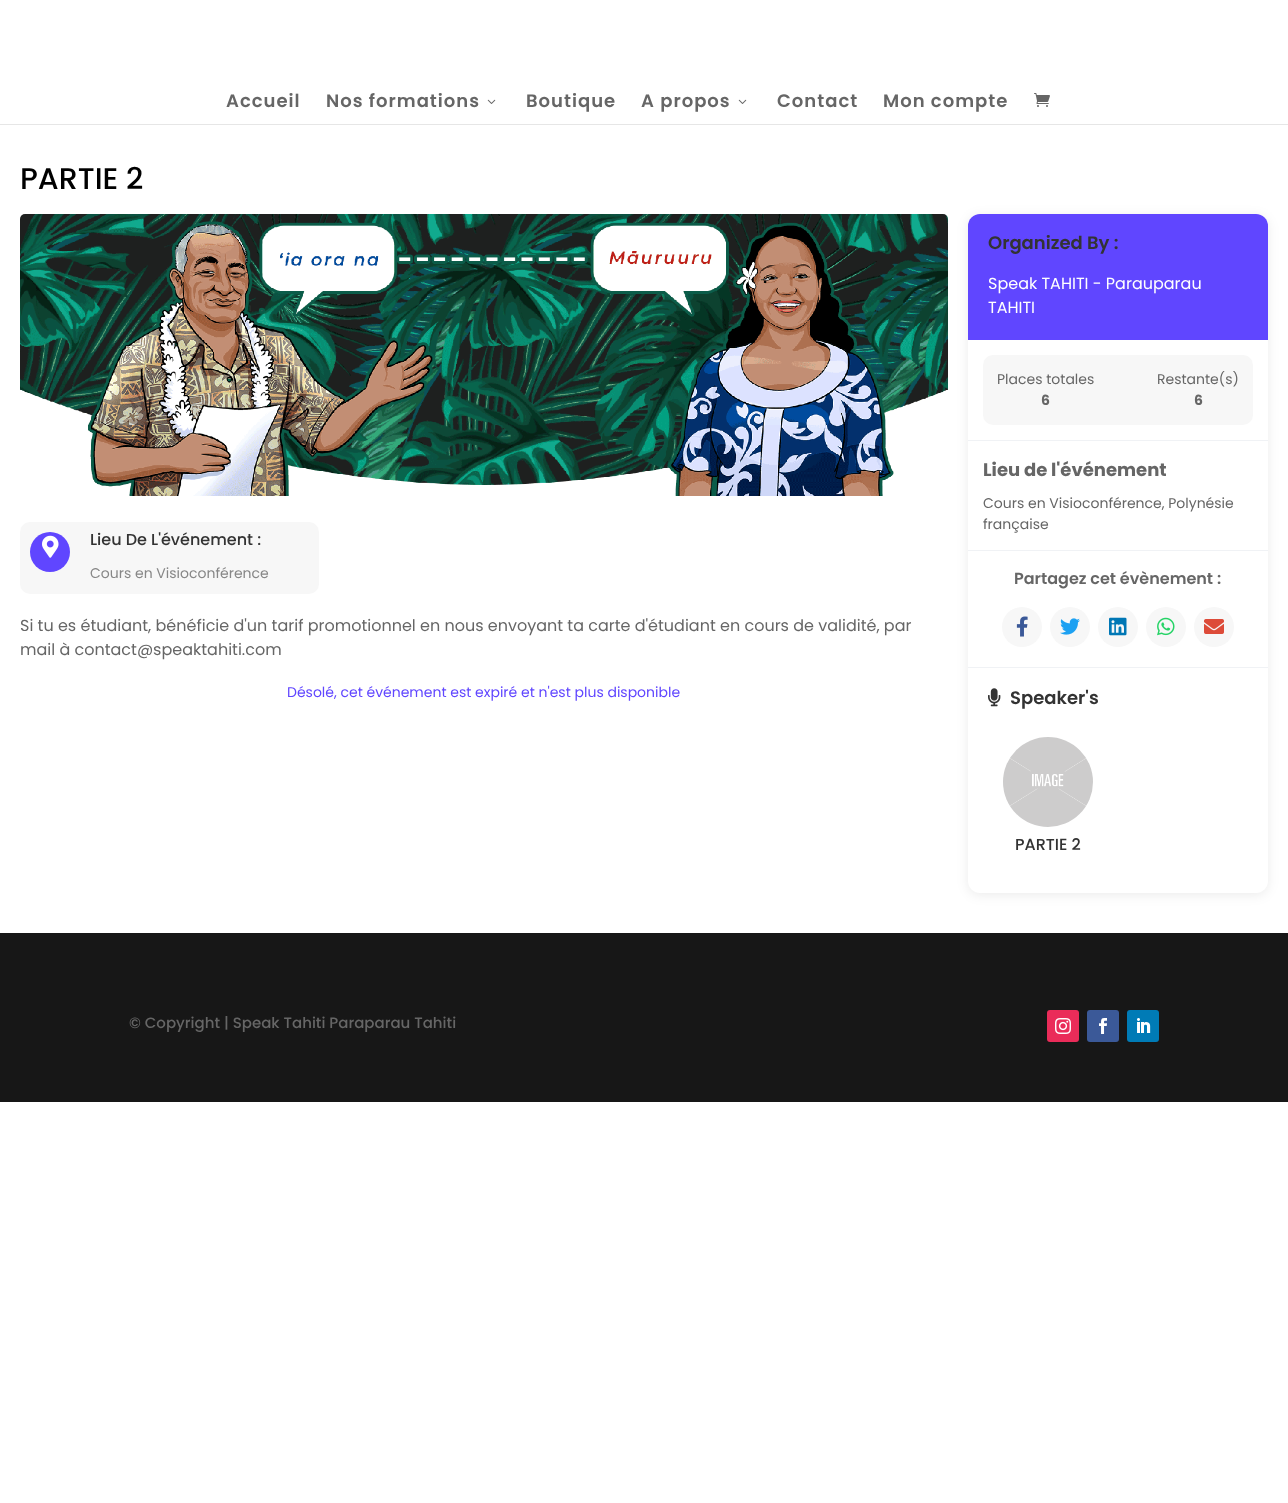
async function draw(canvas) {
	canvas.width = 1288;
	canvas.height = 1503;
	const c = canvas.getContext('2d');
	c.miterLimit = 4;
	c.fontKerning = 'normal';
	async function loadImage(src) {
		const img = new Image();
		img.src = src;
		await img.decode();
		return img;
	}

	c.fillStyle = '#fff';
	c.fillRect(0, 0, 1288, 1503);
	c.fillStyle = '#e6e6e6';
	c.fillRect(0, 124, 1288, 1);
	c.letterSpacing = '1px';
	c.font = '600 18px Poppins';
	c.fillStyle = '#666';
	c.fillText('Accueil', 226, 107);
	c.fillText('Nos formations', 326, 107);
	c.drawImage(await loadImage('img1.png'), 487, 99, 9, 5);
	c.fillText('Boutique', 526, 107);
	c.fillText('A propos', 641, 107);
	c.drawImage(await loadImage('img1.png'), 738, 99, 9, 5);
	c.fillText('Contact', 777, 107);
	c.fillText('Mon compte', 883, 107);
	c.drawImage(await loadImage('img2.png'), 1034, 93, 16, 14);
	c.letterSpacing = '0px';
	c.font = '500 30px Poppins';
	c.fillStyle = '#000';
	c.fillText('PARTIE 2', 20, 189);
	c.drawImage(await loadImage('img3.png'), 20, 214, 928, 282);
	c.fillStyle = '#f7f7f7';
	c.beginPath();
	c.roundRect(20, 522, 299, 72, 10);
	c.fill();
	c.fillStyle = '#6046ff';
	c.beginPath();
	c.arc(50, 552, 20, 0, 2 * Math.PI);
	c.fill();
	c.drawImage(await loadImage('img4.png'), 42, 535, 17, 23);
	c.font = '500 16px Poppins';
	c.fillStyle = '#333';
	c.fillText('Lieu De L\'événement :', 90, 545);
	c.font = '14px Poppins';
	c.fillStyle = '#878787';
	c.fillText('Cours en Visioconférence', 90, 578);
	c.font = '16px Poppins';
	c.fillStyle = '#666';
	c.fillText('Si tu es étudiant, bénéficie d\'un tarif promotionnel en nous envoyant ta carte d\'étudiant en cours de validité, par', 20, 631);
	c.fillText('mail à contact@speaktahiti.com', 20, 655);
	c.font = '14px Poppins';
	c.fillStyle = '#6046ff';
	c.fillText('Désolé, cet événement est expiré et n\'est plus disponible', 287, 697);
	c.fillStyle = '#00000014';
	c.filter = 'blur(6px)';
	c.beginPath();
	c.roundRect(968, 216, 300, 679, 12);
	c.fill();
	c.filter = 'none';
	c.fillStyle = '#fff';
	c.beginPath();
	c.roundRect(968, 214, 300, 679, 12);
	c.fill();
	c.fillStyle = '#6046ff';
	c.beginPath();
	c.roundRect(968, 214, 300, 126, [12, 12, 0, 0]);
	c.fill();
	c.font = '600 18px Poppins';
	c.fillStyle = '#333';
	c.fillText('Organized By :', 988, 249);
	c.font = '16px Poppins';
	c.fillStyle = '#fff';
	c.fillText('Speak TAHITI - Parauparau', 988, 289);
	c.fillText('TAHITI', 988, 313);
	c.fillStyle = '#f0f2f5';
	c.fillRect(968, 440, 300, 1);
	c.fillStyle = '#f7f7f7';
	c.beginPath();
	c.roundRect(983, 355, 270, 70, 10);
	c.fill();
	c.font = '14px Poppins';
	c.fillStyle = '#666';
	c.fillText('Places totales', 997, 384);
	c.font = 'bold 14px Poppins';
	c.fillText('6', 1041, 405);
	c.font = '14px Poppins';
	c.fillText('Restante(s)', 1157, 384);
	c.font = 'bold 14px Poppins';
	c.fillText('6', 1194, 405);
	c.fillStyle = '#f0f2f5';
	c.fillRect(968, 550, 300, 1);
	c.font = 'bold 18px Poppins';
	c.fillStyle = '#666';
	c.fillText('Lieu de l\'événement', 983, 476);
	c.font = '14px Poppins';
	c.fillText('Cours en Visioconférence, Polynésie', 983, 508);
	c.fillText('française', 983, 529);
	c.fillStyle = '#f0f2f5';
	c.fillRect(968, 667, 300, 1);
	c.font = '600 16px Poppins';
	c.fillStyle = '#666';
	c.fillText('Partagez cet évènement :', 1014, 584);
	c.fillStyle = '#f7f7f7';
	c.beginPath();
	c.arc(1022, 627, 20, 0, 2 * Math.PI);
	c.fill();
	c.drawImage(await loadImage('img5.png'), 1016, 616, 12, 21);
	c.beginPath();
	c.arc(1070, 627, 20, 0, 2 * Math.PI);
	c.fill();
	c.drawImage(await loadImage('img6.png'), 1060, 618, 20, 17);
	c.beginPath();
	c.arc(1118, 627, 20, 0, 2 * Math.PI);
	c.fill();
	c.drawImage(await loadImage('img7.png'), 1109, 617, 18, 19);
	c.beginPath();
	c.arc(1166, 627, 20, 0, 2 * Math.PI);
	c.fill();
	c.drawImage(await loadImage('img8.png'), 1157, 617, 18, 19);
	c.beginPath();
	c.arc(1214, 627, 20, 0, 2 * Math.PI);
	c.fill();
	c.drawImage(await loadImage('img9.png'), 1204, 619, 20, 15);
	c.drawImage(await loadImage('img10.png'), 988, 688, 13, 19);
	c.font = '600 18px Poppins';
	c.fillStyle = '#333';
	c.fillText('Speaker\'s', 1010, 704);
	c.drawImage(await loadImage('img11.png'), 1003, 737, 90, 90);
	c.font = '500 16px Poppins';
	c.fillText('PARTIE 2', 1015, 850);
	c.fillStyle = '#171717';
	c.fillRect(0, 933, 1288, 169);
	c.font = '500 15px Poppins';
	c.fillStyle = '#666';
	c.fillText('© Copyright | Speak Tahiti Paraparau Tahiti', 129, 1028);
	c.fillStyle = '#ea2c59';
	c.beginPath();
	c.roundRect(1047, 1010, 32, 32, 3);
	c.fill();
	c.drawImage(await loadImage('img12.png'), 1055, 1018, 16, 16);
	c.fillStyle = '#3b5998';
	c.beginPath();
	c.roundRect(1087, 1010, 32, 32, 3);
	c.fill();
	c.drawImage(await loadImage('img13.png'), 1099, 1018, 8, 16);
	c.fillStyle = '#007bb6';
	c.beginPath();
	c.roundRect(1127, 1010, 32, 32, 3);
	c.fill();
	c.drawImage(await loadImage('img14.png'), 1137, 1018, 14, 15);
}

draw(document.querySelector('canvas'));
